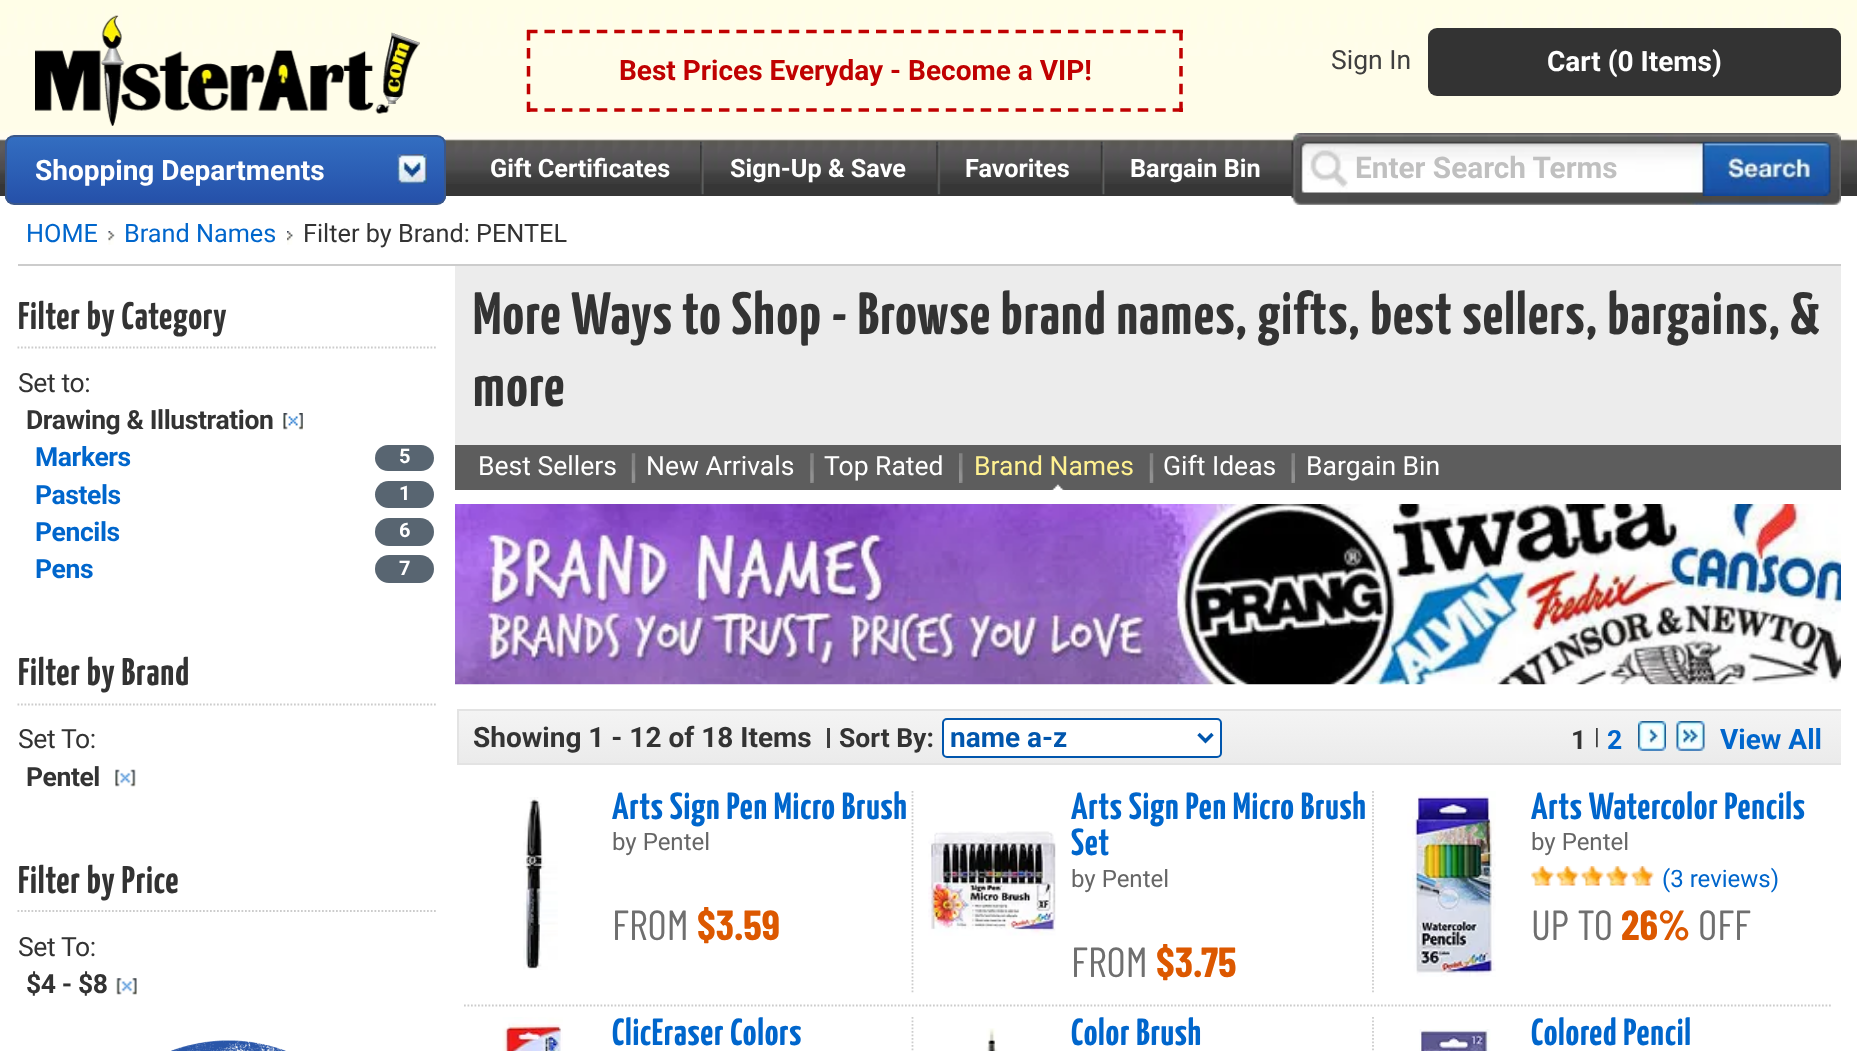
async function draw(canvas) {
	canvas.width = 1857;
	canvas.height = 1051;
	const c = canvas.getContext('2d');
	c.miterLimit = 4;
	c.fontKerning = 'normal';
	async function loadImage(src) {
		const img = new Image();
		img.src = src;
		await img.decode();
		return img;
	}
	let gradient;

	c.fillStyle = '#fff';
	c.fillRect(0, 0, 1857, 1051);
	c.fillStyle = '#363636';
	c.fillRect(0, 184, 1857, 12);
	c.drawImage(await loadImage('img1.png'), 0, 0, 1857, 184);
	c.drawImage(await loadImage('img2.png'), 35, 15, 385, 111);
	c.beginPath();
	c.moveTo(527, 31.5);
	c.lineTo(1183, 31.5);
	c.strokeStyle = '#c00101';
	c.lineWidth = 3.5;
	c.setLineDash([10.5, 6.95]);
	c.stroke();
	c.beginPath();
	c.moveTo(1181, 30);
	c.lineTo(1181, 112);
	c.setLineDash([10.5, 7.44]);
	c.stroke();
	c.beginPath();
	c.moveTo(527, 110);
	c.lineTo(1183, 110);
	c.setLineDash([10.5, 6.95]);
	c.stroke();
	c.beginPath();
	c.moveTo(528.5, 30);
	c.lineTo(528.5, 112);
	c.setLineDash([10.5, 7.44]);
	c.stroke();
	c.font = 'bold 28px Roboto';
	c.fillStyle = '#c00101';
	c.fillText('Best Prices Everyday - Become a VIP!', 619, 80);
	c.font = '26.5px Roboto';
	c.fillStyle = '#3f3f3f';
	c.fillText('Sign In', 1331, 69);
	c.fillStyle = '#333';
	c.beginPath();
	c.roundRect(1428, 28, 413, 68, 9);
	c.fill();
	c.font = 'bold 28px Roboto';
	c.fillStyle = '#fff';
	c.fillText('Cart (0 Items)', 1547, 71);
	c.save();
	c.beginPath();
	c.roundRect(5, 135, 441, 70, 9);
	c.clip();
	gradient = c.createLinearGradient(226, 136, 226, 203);
	gradient.addColorStop(0, '#336ec1');
	gradient.addColorStop(0.66, '#2a5bb2');
	gradient.addColorStop(1, '#2550a9');
	c.fillStyle = gradient;
	c.fillRect(5, 137, 441, 66);
	c.restore();
	c.beginPath();
	c.roundRect(6, 136, 439, 68, 8);
	c.strokeStyle = '#3a5789';
	c.lineWidth = 2;
	c.setLineDash([]);
	c.stroke();
	c.fillText('Shopping Departments', 35, 180);
	c.drawImage(await loadImage('img3.png'), 397, 154, 30, 30);
	c.font = 'bold 25.25px Roboto';
	c.fillText('Gift Certificates', 490, 177);
	c.drawImage(await loadImage('img4.png'), 700, 141, 4, 54);
	c.fillText('Sign-Up & Save', 730, 177);
	c.drawImage(await loadImage('img5.png'), 936, 141, 5, 54);
	c.fillText('Favorites', 965, 177);
	c.drawImage(await loadImage('img6.png'), 1100, 141, 5, 54);
	c.fillText('Bargain Bin', 1130, 177);
	c.drawImage(await loadImage('img7.png'), 1291, 133, 550, 72);
	c.drawImage(await loadImage('img8.png'), 1300, 141, 403, 52);
	c.font = 'bold 29.75px Roboto';
	c.fillStyle = '#c0c0c0';
	c.fillText('Enter Search Terms', 1355, 178);
	c.drawImage(await loadImage('img9.png'), 1702, 141, 129, 55);
	c.fillStyle = '#ccc';
	c.fillRect(18, 264, 1823, 2);
	c.font = '25.25px Roboto';
	c.fillStyle = '#06c';
	c.fillText('HOME', 26, 242);
	c.drawImage(await loadImage('img10.png'), 108, 231, 7, 14);
	c.fillText('Brand Names', 124, 242);
	c.drawImage(await loadImage('img11.png'), 287, 231, 6, 14);
	c.fillStyle = '#333';
	c.fillText('Filter by Brand: PENTEL', 303, 242);
	c.beginPath();
	c.moveTo(17.5, 347.5);
	c.lineTo(437.5, 347.5);
	c.strokeStyle = '#ccc';
	c.lineWidth = 1.8;
	c.setLineDash([1.75, 1.75]);
	c.stroke();
	c.letterSpacing = '0.75px';
	c.font = '200 38.5px Yanone Kaffeesatz';
	c.fillText('Filter by Category', 18, 329);
	c.letterSpacing = '-0.4px';
	c.font = '26.5px Roboto';
	c.fillText('Set to:', 18, 392);
	c.font = 'bold 26.5px Roboto';
	c.fillText('Drawing & Illustration', 26, 429);
	c.drawImage(await loadImage('img12.png'), 283, 413, 20, 17);
	c.fillStyle = '#06c';
	c.fillText('Markers', 35, 466);
	c.fillStyle = '#586571';
	c.beginPath();
	c.roundRect(375, 445, 59, 26, 13);
	c.fill();
	c.font = 'bold 20px Roboto';
	c.fillStyle = '#fff';
	c.fillText('5', 399, 463);
	c.font = 'bold 26.5px Roboto';
	c.fillStyle = '#06c';
	c.fillText('Pastels', 35, 504);
	c.fillStyle = '#586571';
	c.beginPath();
	c.roundRect(375, 481, 59, 27, 13.5);
	c.fill();
	c.font = 'bold 20px Roboto';
	c.fillStyle = '#fff';
	c.fillText('1', 399, 500);
	c.font = 'bold 26.5px Roboto';
	c.fillStyle = '#06c';
	c.fillText('Pencils', 35, 541);
	c.fillStyle = '#586571';
	c.beginPath();
	c.roundRect(375, 518, 59, 28, 14);
	c.fill();
	c.font = 'bold 20px Roboto';
	c.fillStyle = '#fff';
	c.fillText('6', 399, 537);
	c.font = 'bold 26.5px Roboto';
	c.fillStyle = '#06c';
	c.fillText('Pens', 35, 578);
	c.fillStyle = '#586571';
	c.beginPath();
	c.roundRect(375, 555, 59, 28, 14);
	c.fill();
	c.font = 'bold 20px Roboto';
	c.fillStyle = '#fff';
	c.fillText('7', 399, 575);
	c.beginPath();
	c.moveTo(17.5, 704.5);
	c.lineTo(437.5, 704.5);
	c.stroke();
	c.letterSpacing = '0.75px';
	c.font = '200 38.5px Yanone Kaffeesatz';
	c.fillStyle = '#333';
	c.fillText('Filter by Brand', 18, 685);
	c.letterSpacing = '-0.4px';
	c.font = '26.5px Roboto';
	c.fillText('Set To:', 18, 748);
	c.font = 'bold 26.5px Roboto';
	c.fillText('Pentel', 26, 786);
	c.drawImage(await loadImage('img13.png'), 115, 769, 21, 18);
	c.beginPath();
	c.moveTo(17.5, 911);
	c.lineTo(437.5, 911);
	c.stroke();
	c.letterSpacing = '0.75px';
	c.font = '200 38.5px Yanone Kaffeesatz';
	c.fillText('Filter by Price', 18, 893);
	c.letterSpacing = '-0.4px';
	c.font = '26.5px Roboto';
	c.fillText('Set To:', 18, 956);
	c.font = 'bold 26.5px Roboto';
	c.fillText('$4 - $8', 26, 993);
	c.drawImage(await loadImage('img14.png'), 116, 978, 21, 17);
	c.drawImage(await loadImage('img15.png'), 171, 1040, 115, 11);
	c.fillStyle = '#ececec';
	c.fillRect(455, 266, 1386, 179);
	c.letterSpacing = '1.2px';
	c.font = '200 59.5px Yanone Kaffeesatz';
	c.fillStyle = '#333';
	c.fillText('More Ways to Shop - Browse brand names, gifts, best sellers, bargains, &', 473, 334);
	c.fillText('more', 473, 406);
	c.fillStyle = '#5d5d5d';
	c.fillRect(455, 445, 1386, 45);
	c.letterSpacing = '0px';
	c.font = '26.5px Roboto';
	c.fillStyle = '#fff';
	c.fillText('Best Sellers', 478, 475);
	c.drawImage(await loadImage('img16.png'), 631, 453, 5, 30);
	c.fillText('New Arrivals', 646, 475);
	c.drawImage(await loadImage('img17.png'), 810, 453, 4, 30);
	c.fillText('Top Rated', 824, 475);
	c.drawImage(await loadImage('img18.png'), 959, 453, 4, 30);
	c.fillStyle = '#fff191';
	c.fillText('Brand Names', 974, 475);
	c.drawImage(await loadImage('img16.png'), 1149, 453, 5, 30);
	c.fillStyle = '#fff';
	c.fillText('Gift Ideas', 1163, 475);
	c.drawImage(await loadImage('img19.png'), 1291, 453, 4, 30);
	c.fillText('Bargain Bin', 1306, 475);
	c.drawImage(await loadImage('img20.png'), 1051, 484, 14, 6);
	c.drawImage(await loadImage('img21.png'), 455, 504, 1386, 181);
	gradient = c.createLinearGradient(1152, 710, 1152, 763);
	gradient.addColorStop(0, '#f4f4f4');
	gradient.addColorStop(1, '#ebebeb');
	c.fillStyle = gradient;
	c.fillRect(459, 711, 1382, 52);
	c.save();
	c.beginPath();
	c.rect(438, 266, 1403, 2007);
	c.clip();
	c.strokeStyle = '#e3e3e3';
	c.lineWidth = 2;
	c.setLineDash([]);
	c.strokeRect(458, 710, 1387, 54);
	c.restore();
	c.fillStyle = '#3f3f3f';
	c.fillRect(827, 728, 3, 20);
	c.font = 'bold 28px Roboto';
	c.fillStyle = '#333';
	c.fillText('Showing 1 - 12 of 18 Items', 473, 747);
	c.font = 'bold 26.5px Roboto';
	c.fillText('Sort By:', 839, 747);
	c.fillStyle = '#fff';
	c.beginPath();
	c.roundRect(943, 719, 278, 38, 4);
	c.fill();
	c.strokeStyle = '#0156ad';
	c.lineWidth = 2;
	c.setLineDash([]);
	c.stroke();
	c.beginPath();
	c.moveTo(1198.5, 734);
	c.lineTo(1205.5, 741);
	c.lineTo(1212.5, 734);
	c.lineWidth = 3.5;
	c.stroke();
	c.font = 'bold 28px Roboto';
	c.fillStyle = '#0156ad';
	c.fillText('name a-z', 950, 747);
	c.font = 'bold 26.5px Roboto';
	c.fillStyle = '#333';
	c.fillText('1', 1571, 749);
	c.drawImage(await loadImage('img22.png'), 1596, 728, 2, 20);
	c.fillStyle = '#06c';
	c.fillText('2', 1607, 749);
	c.drawImage(await loadImage('img23.png'), 1638, 721, 28, 30);
	c.drawImage(await loadImage('img24.png'), 1676, 721, 29, 30);
	c.font = 'bold 28px Roboto';
	c.fillText('View All', 1720, 749);
	c.beginPath();
	c.moveTo(912.5, 791);
	c.lineTo(912.5, 994);
	c.strokeStyle = '#ccc';
	c.lineWidth = 1.8;
	c.setLineDash([1.75, 1.75]);
	c.stroke();
	c.drawImage(await loadImage('img25.png'), 523, 797, 35, 173);
	c.letterSpacing = '0.75px';
	c.font = '200 37.75px Yanone Kaffeesatz';
	c.fillText('Arts Sign Pen Micro Brush', 612, 819);
	c.letterSpacing = '0px';
	c.font = '24px Roboto';
	c.fillStyle = '#666';
	c.fillText('by Pentel', 612, 850);
	c.font = '42px Barlow Condensed';
	c.fillStyle = '#6f6f6f';
	c.fillText('FROM', 612, 940);
	c.font = 'bold 42px Barlow Condensed';
	c.fillStyle = '#dc5800';
	c.fillText('$3.59', 697, 940);
	c.beginPath();
	c.moveTo(1373, 791);
	c.lineTo(1373, 994);
	c.stroke();
	c.drawImage(await loadImage('img26.png'), 928, 831, 128, 105);
	c.letterSpacing = '0.75px';
	c.font = '200 37.75px Yanone Kaffeesatz';
	c.fillStyle = '#06c';
	c.fillText('Arts Sign Pen Micro Brush', 1071, 819);
	c.fillText('Set', 1071, 855);
	c.letterSpacing = '0px';
	c.font = '24px Roboto';
	c.fillStyle = '#666';
	c.fillText('by Pentel', 1071, 887);
	c.font = '42px Barlow Condensed';
	c.fillStyle = '#6f6f6f';
	c.fillText('FROM', 1071, 977);
	c.font = 'bold 42px Barlow Condensed';
	c.fillStyle = '#dc5800';
	c.fillText('$3.75', 1156, 977);
	c.drawImage(await loadImage('img27.png'), 1407, 791, 89, 186);
	c.letterSpacing = '0.75px';
	c.font = '200 37.75px Yanone Kaffeesatz';
	c.fillStyle = '#06c';
	c.fillText('Arts Watercolor Pencils', 1531, 819);
	c.letterSpacing = '0px';
	c.font = '24px Roboto';
	c.fillStyle = '#666';
	c.fillText('by Pentel', 1531, 850);
	c.drawImage(await loadImage('img28.png'), 1531, 866, 123, 20);
	c.fillStyle = '#06c';
	c.fillText('(3 reviews)', 1662, 887);
	c.font = '42px Barlow Condensed';
	c.fillStyle = '#6f6f6f';
	c.fillText('UP TO', 1531, 940);
	c.font = 'bold 42px Barlow Condensed';
	c.fillStyle = '#dc5800';
	c.fillText('26%', 1621, 940);
	c.font = '42px Barlow Condensed';
	c.fillStyle = '#6f6f6f';
	c.fillText('OFF', 1698, 940);
	c.beginPath();
	c.moveTo(464, 1005.5);
	c.lineTo(1832, 1005.5);
	c.stroke();
	c.beginPath();
	c.moveTo(912.5, 1017);
	c.lineTo(912.5, 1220);
	c.stroke();
	c.drawImage(await loadImage('img29.png'), 502, 1017, 61, 34);
	c.letterSpacing = '0.75px';
	c.font = '200 37.75px Yanone Kaffeesatz';
	c.fillStyle = '#06c';
	c.fillText('ClicEraser Colors', 612, 1045);
	c.beginPath();
	c.moveTo(1373, 1017);
	c.lineTo(1373, 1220);
	c.stroke();
	c.drawImage(await loadImage('img30.png'), 986, 1028, 12, 23);
	c.fillText('Color Brush', 1071, 1045);
	c.drawImage(await loadImage('img31.png'), 1419, 1029, 72, 22);
	c.fillText('Colored Pencil', 1531, 1045);
}

draw(document.querySelector('canvas'));
